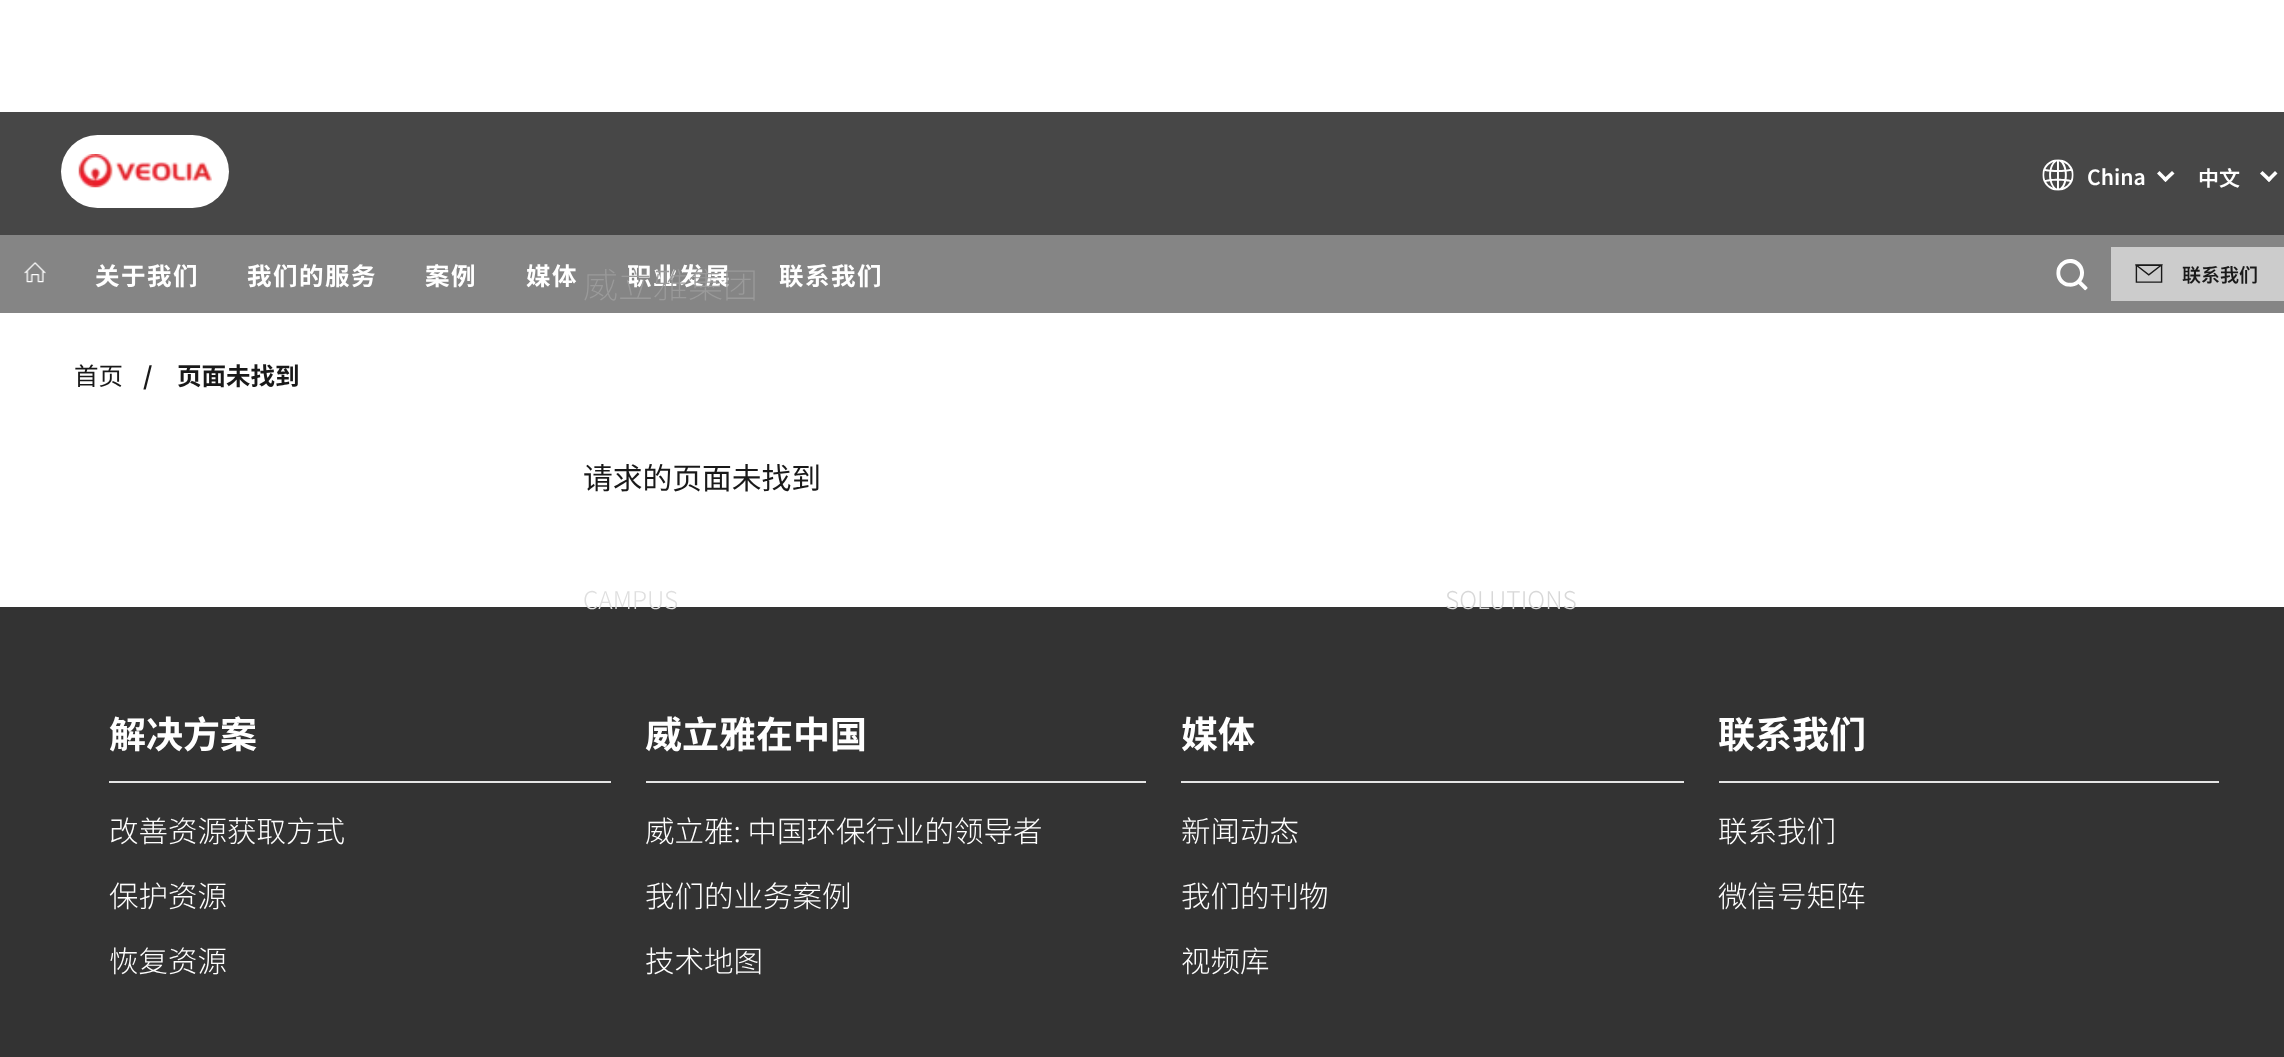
async function draw(canvas) {
	canvas.width = 2284;
	canvas.height = 1057;
	const c = canvas.getContext('2d');
	c.miterLimit = 4;
	c.fontKerning = 'normal';
	async function loadImage(src) {
		const img = new Image();
		img.src = src;
		await img.decode();
		return img;
	}

	c.fillStyle = '#fff';
	c.fillRect(0, 0, 2284, 1057);
	c.fillStyle = '#858585';
	c.fillRect(0, 235, 2284, 78);
	c.fillStyle = '#474747';
	c.fillRect(0, 112, 2284, 123);
	c.fillStyle = '#fff';
	c.beginPath();
	c.roundRect(61, 135, 168, 73, 36.5);
	c.fill();
	c.drawImage(await loadImage('img1.png'), 78, 154, 134, 34);
	c.drawImage(await loadImage('img2.png'), 2042, 159, 32, 32);
	c.font = '600 21px Noto Sans SC';
	c.fillText('China', 2087, 185);
	c.beginPath();
	c.moveTo(2172, 171);
	c.lineTo(2174.5, 173.5);
	c.lineTo(2165.5, 182);
	c.lineTo(2163, 179.5);
	c.closePath();
	c.fill();
	c.beginPath();
	c.moveTo(2159.5, 171);
	c.lineTo(2168, 179.5);
	c.lineTo(2165.5, 182);
	c.lineTo(2157, 173.5);
	c.closePath();
	c.fill();
	c.letterSpacing = '1.5px';
	c.font = 'bold 24.5px Noto Sans SC';
	c.fillText('职业发展', 627, 285);
	c.letterSpacing = '0px';
	c.font = '200 35px Noto Sans SC';
	c.fillStyle = '#9a9a9a';
	c.fillText('威立雅集团', 583, 298);
	c.fillStyle = '#333';
	c.fillRect(0, 607, 2284, 450);
	c.font = '300 24.5px Noto Sans SC';
	c.fillStyle = '#dfdfdf';
	c.fillText('CAMPUS', 583, 609);
	c.fillStyle = '#d8d8d8';
	c.fillText('SOLUTIONS', 1445, 609);
	c.font = '600 21px Noto Sans SC';
	c.fillStyle = '#fff';
	c.fillText('中文', 2198, 186);
	c.beginPath();
	c.moveTo(2275, 171);
	c.lineTo(2277.5, 173.5);
	c.lineTo(2269, 182);
	c.lineTo(2266.5, 179.5);
	c.closePath();
	c.fill();
	c.beginPath();
	c.moveTo(2262.5, 171);
	c.lineTo(2271.5, 179.5);
	c.lineTo(2269, 182);
	c.lineTo(2260, 173.5);
	c.closePath();
	c.fill();
	c.drawImage(await loadImage('img3.png'), 24, 262, 22, 21);
	c.letterSpacing = '1.5px';
	c.font = 'bold 24.5px Noto Sans SC';
	for (const [text, x, y] of [
		['关于我们', 95, 285],
		['我们的服务', 247, 285],
		['案例', 425, 285],
		['媒体', 526, 285],
		['联系我们', 779, 285],
	]) {
		c.fillText(text, x, y);
	}
	c.drawImage(await loadImage('img4.png'), 2056, 259, 32, 32);
	c.fillStyle = '#ccc';
	c.fillRect(2111, 247, 173, 54);
	c.drawImage(await loadImage('img5.png'), 2135, 264, 28, 19);
	c.letterSpacing = '0px';
	c.font = '600 19px Noto Sans SC';
	c.fillStyle = '#191919';
	c.fillText('联系我们', 2182, 282);
	c.font = '24.5px Noto Sans SC';
	c.fillText('首页', 74, 385);
	c.font = 'bold 24.5px Noto Sans SC';
	c.fillText('/', 143, 385);
	c.fillText('页面未找到', 177, 385);
	c.font = '29.75px Noto Sans SC';
	c.fillText('请求的页面未找到', 583, 489);
	c.fillStyle = '#e5e5e5';
	c.fillRect(109, 781, 502, 2);
	c.font = 'bold 37px Noto Sans SC';
	c.fillStyle = '#fff';
	c.fillText('解决方案', 109, 748);
	c.font = '300 29.5px Noto Sans SC';
	for (const [text, x, y] of [
		['改善资源获取方式', 109, 842],
		['保护资源', 109, 907],
		['恢复资源', 109, 972],
	]) {
		c.fillText(text, x, y);
	}
	c.fillStyle = '#e5e5e5';
	c.fillRect(646, 781, 500, 2);
	c.font = 'bold 37px Noto Sans SC';
	c.fillStyle = '#fff';
	c.fillText('威立雅在中国', 645, 748);
	c.font = '300 29.5px Noto Sans SC';
	for (const [text, x, y] of [
		['威立雅: 中国环保行业的领导者', 645, 842],
		['我们的业务案例', 645, 907],
		['技术地图', 645, 972],
	]) {
		c.fillText(text, x, y);
	}
	c.fillStyle = '#e5e5e5';
	c.fillRect(1181, 781, 503, 2);
	c.font = 'bold 37px Noto Sans SC';
	c.fillStyle = '#fff';
	c.fillText('媒体', 1181, 748);
	c.font = '300 29.5px Noto Sans SC';
	for (const [text, x, y] of [
		['新闻动态', 1181, 842],
		['我们的刊物', 1181, 907],
		['视频库', 1181, 972],
	]) {
		c.fillText(text, x, y);
	}
	c.fillStyle = '#e5e5e5';
	c.fillRect(1719, 781, 500, 2);
	c.font = 'bold 37px Noto Sans SC';
	c.fillStyle = '#fff';
	c.fillText('联系我们', 1718, 748);
	c.font = '300 29.5px Noto Sans SC';
	c.fillText('联系我们', 1718, 842);
	c.fillText('微信号矩阵', 1718, 907);
}

draw(document.querySelector('canvas'));
